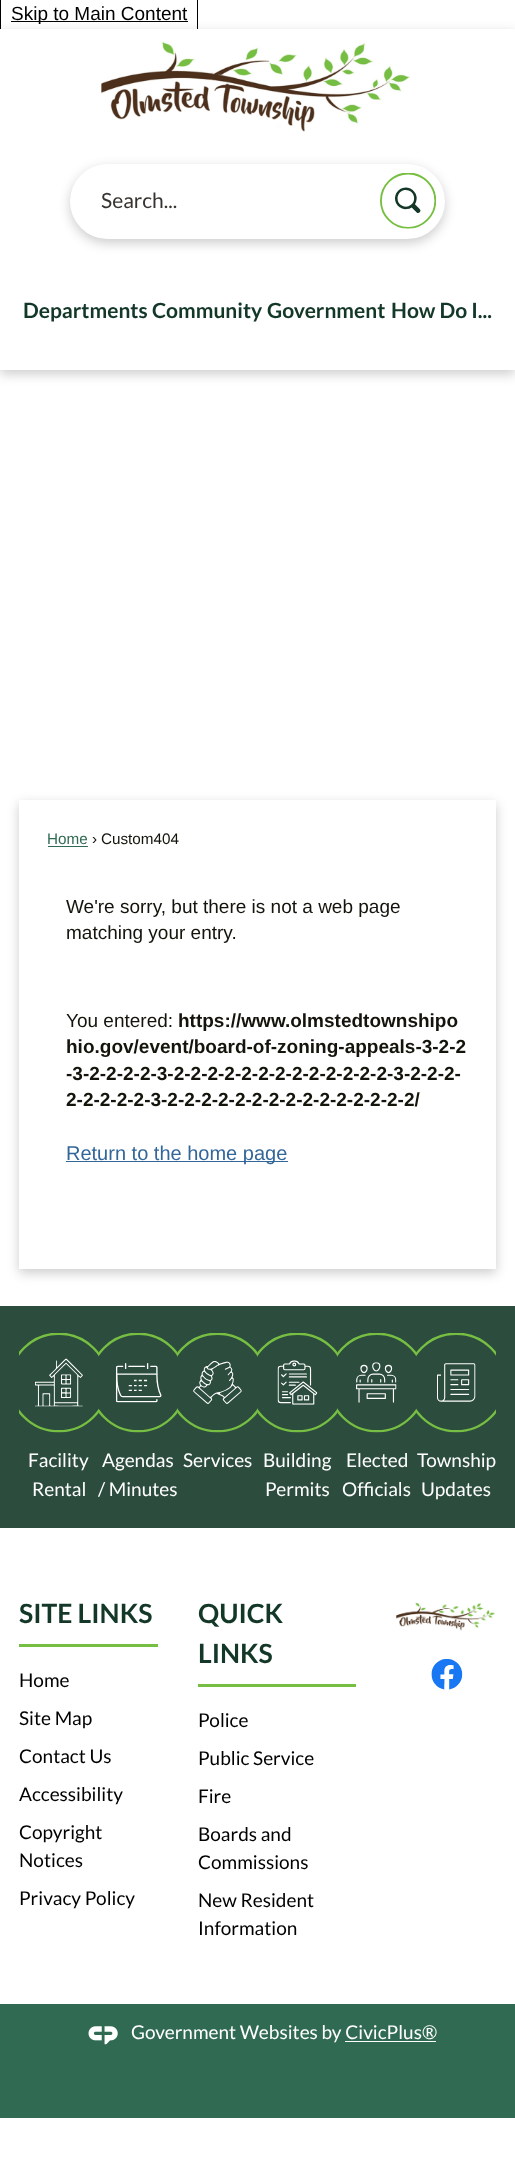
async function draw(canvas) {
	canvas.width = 515;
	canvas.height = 2173;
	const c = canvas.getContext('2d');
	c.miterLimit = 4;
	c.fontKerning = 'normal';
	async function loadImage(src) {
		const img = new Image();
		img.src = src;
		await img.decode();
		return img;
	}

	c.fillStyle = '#fff';
	c.fillRect(0, 0, 515, 2173);
	c.strokeStyle = '#000';
	c.strokeRect(0.5, -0.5, 197, 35);
	c.fillStyle = '#000';
	c.fillRect(11, 21, 177, 1);
	c.font = '19px Liberation Sans';
	c.fillText('Skip to Main Content', 11, 20);
	c.fillStyle = '#00000033';
	c.filter = 'blur(6px)';
	c.beginPath();
	c.rect(0, 33, 515, 341);
	c.fill();
	c.filter = 'none';
	c.fillStyle = '#fff';
	c.fillRect(0, 29, 515, 341);
	c.drawImage(await loadImage('img1.png'), 101, 41, 310, 91);
	c.fillStyle = '#00000033';
	c.filter = 'blur(6px)';
	c.beginPath();
	c.roundRect(70, 168, 375, 75, 37.5);
	c.fill();
	c.filter = 'none';
	c.fillStyle = '#fff';
	c.beginPath();
	c.roundRect(70, 164, 375, 75, 37.5);
	c.fill();
	c.font = '21px Lato';
	c.fillStyle = '#373330';
	c.fillText('Search...', 101, 208);
	c.drawImage(await loadImage('img2.png'), 380, 173, 56, 56);
	c.font = 'bold 21px Lato';
	c.fillStyle = '#143828';
	for (const [text, x, y] of [
		['Departments', 23, 318],
		['Community', 152, 318],
		['Government', 267, 318],
		['How Do I...', 391, 318],
	]) {
		c.fillText(text, x, y);
	}
	c.fillStyle = '#00000033';
	c.filter = 'blur(6px)';
	c.beginPath();
	c.rect(19, 804, 477, 469);
	c.fill();
	c.filter = 'none';
	c.fillStyle = '#fff';
	c.fillRect(19, 800, 477, 469);
	c.font = '15.25px Liberation Sans';
	c.fillStyle = '#306a53';
	c.fillText('Home', 47, 844);
	c.fillRect(48, 846, 40, 1);
	c.fillStyle = '#14140c';
	c.fillText('›', 92, 844);
	c.fillText('Custom404', 101, 844);
	c.font = '19px Liberation Sans';
	for (const [text, x, y] of [
		['We\'re sorry, but there is not a web page', 66, 913],
		['matching your entry.', 66, 939],
		['You entered:', 66, 1027],
	]) {
		c.fillText(text, x, y);
	}
	c.font = 'bold 19px Liberation Sans';
	for (const [text, x, y] of [
		['https://www.olmstedtownshipo', 178, 1027],
		['hio.gov/event/board-of-zoning-appeals-3-2-2', 66, 1053],
		['-3-2-2-2-2-3-2-2-2-2-2-2-2-2-2-2-2-2-2-3-2-2-2-', 66, 1080],
		['2-2-2-2-2-3-2-2-2-2-2-2-2-2-2-2-2-2-2-2-2/', 66, 1106],
	]) {
		c.fillText(text, x, y);
	}
	c.fillStyle = '#369';
	c.fillRect(66, 1161, 222, 1);
	c.font = '20px Liberation Sans';
	c.fillText('Return to the home page', 66, 1160);
	c.fillStyle = '#2c4c3e';
	c.fillRect(0, 1306, 515, 222);
	c.drawImage(await loadImage('img3.png'), 19, 1333, 80, 100);
	c.drawImage(await loadImage('img4.png'), 35, 1358, 48, 49);
	c.font = '19px Lato';
	c.fillStyle = '#fff';
	c.fillText('Facility', 28, 1467);
	c.fillText('Rental', 32, 1496);
	c.drawImage(await loadImage('img5.png'), 99, 1333, 79, 100);
	c.drawImage(await loadImage('img6.png'), 115, 1363, 47, 40);
	c.fillText('Agendas', 102, 1467);
	c.fillText('/ Minutes', 98, 1496);
	c.drawImage(await loadImage('img7.png'), 178, 1333, 80, 100);
	c.drawImage(await loadImage('img8.png'), 193, 1361, 49, 43);
	c.fillText('Services', 183, 1467);
	c.drawImage(await loadImage('img9.png'), 258, 1333, 80, 100);
	c.drawImage(await loadImage('img10.png'), 277, 1360, 41, 45);
	c.fillText('Building', 263, 1467);
	c.fillText('Permits', 265, 1496);
	c.drawImage(await loadImage('img11.png'), 338, 1333, 78, 100);
	c.drawImage(await loadImage('img12.png'), 356, 1362, 41, 41);
	c.fillText('Elected', 346, 1467);
	c.fillText('Officials', 342, 1496);
	c.drawImage(await loadImage('img13.png'), 416, 1333, 80, 100);
	c.drawImage(await loadImage('img14.png'), 437, 1363, 39, 39);
	c.fillText('Township', 417, 1467);
	c.fillText('Updates', 421, 1496);
	c.fillStyle = '#77bf42';
	c.fillRect(19, 1644, 139, 3);
	c.font = 'bold 26.5px Lato';
	c.fillStyle = '#143828';
	c.fillText('SITE LINKS', 19, 1623);
	c.font = '19px Lato';
	c.fillStyle = '#000';
	for (const [text, x, y] of [
		['Home', 19, 1687],
		['Site Map', 19, 1725],
		['Contact Us', 19, 1763],
		['Accessibility', 19, 1801],
		['Copyright', 19, 1839],
		['Notices', 19, 1867],
		['Privacy Policy', 19, 1905],
	]) {
		c.fillText(text, x, y);
	}
	c.fillStyle = '#77bf42';
	c.fillRect(198, 1684, 158, 3);
	c.font = 'bold 26.5px Lato';
	c.fillStyle = '#143828';
	c.fillText('QUICK', 198, 1623);
	c.fillText('LINKS', 198, 1663);
	c.font = '19px Lato';
	c.fillStyle = '#000';
	for (const [text, x, y] of [
		['Police', 198, 1727],
		['Public Service', 198, 1765],
		['Fire', 198, 1803],
		['Boards and', 198, 1841],
		['Commissions', 198, 1869],
		['New Resident', 198, 1907],
		['Information', 198, 1935],
	]) {
		c.fillText(text, x, y);
	}
	c.drawImage(await loadImage('img15.png'), 396, 1602, 100, 29);
	c.drawImage(await loadImage('img16.png'), 431, 1659, 32, 31);
	c.fillStyle = '#306a53';
	c.fillRect(0, 2004, 515, 114);
	c.drawImage(await loadImage('img17.png'), 88, 2026, 30, 19);
	c.fillStyle = '#fff';
	c.fillText('Government Websites by CivicPlus®', 131, 2039);
	c.fillRect(345, 2041, 91, 1);
}

draw(document.querySelector('canvas'));
